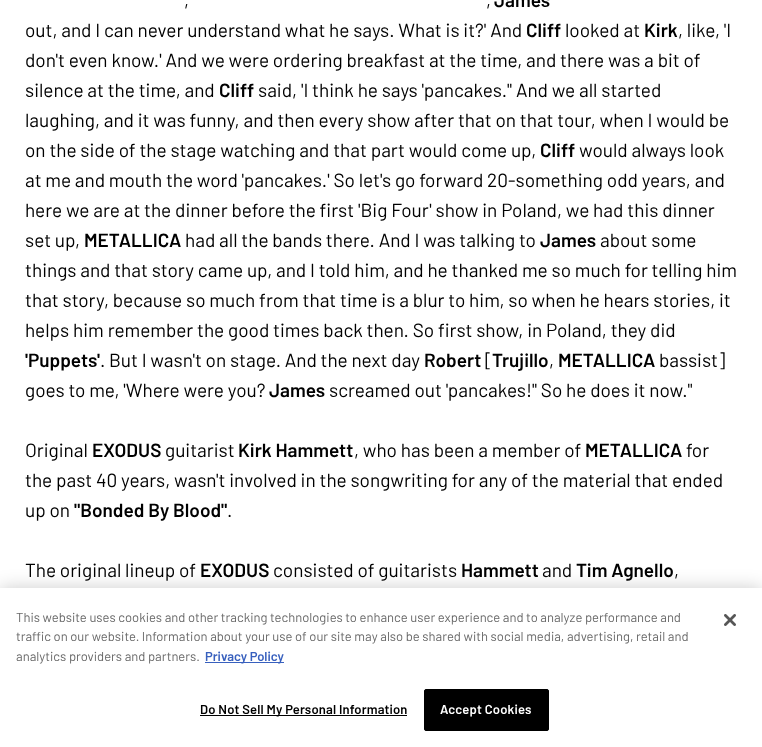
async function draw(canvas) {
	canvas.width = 762;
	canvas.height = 747;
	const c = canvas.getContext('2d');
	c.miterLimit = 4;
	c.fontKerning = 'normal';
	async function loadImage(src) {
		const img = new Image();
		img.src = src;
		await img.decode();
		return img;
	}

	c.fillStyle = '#fff';
	c.fillRect(0, 0, 762, 747);
	c.font = '19px Barlow';
	c.fillStyle = '#000';
	c.fillText(',', 184, 7);
	c.fillText(',', 486, 7);
	c.font = '600 19px Barlow';
	c.fillText('James', 494, 7);
	c.font = '19px Barlow';
	c.fillText('out, and I can never understand what he says. What is it?\' And', 25, 37);
	c.font = '600 19px Barlow';
	c.fillText('Cliff', 526, 37);
	c.font = '19px Barlow';
	c.fillText('looked at', 565, 37);
	c.font = '600 19px Barlow';
	c.fillText('Kirk', 644, 37);
	c.font = '19px Barlow';
	for (const [text, x, y] of [
		[', like, \'I', 678, 37],
		['don\'t even know.\' And we were ordering breakfast at the time, and there was a bit of', 25, 67],
		['silence at the time, and', 25, 97],
	]) {
		c.fillText(text, x, y);
	}
	c.font = '600 19px Barlow';
	c.fillText('Cliff', 219, 97);
	c.font = '19px Barlow';
	for (const [text, x, y] of [
		['said, \'I think he says \'pancakes.\'\' And we all started', 258, 97],
		['laughing, and it was funny, and then every show after that on that tour, when I would be', 25, 127],
		['on the side of the stage watching and that part would come up,', 25, 157],
	]) {
		c.fillText(text, x, y);
	}
	c.font = '600 19px Barlow';
	c.fillText('Cliff', 540, 157);
	c.font = '19px Barlow';
	for (const [text, x, y] of [
		['would always look', 579, 157],
		['at me and mouth the word \'pancakes.\' So let\'s go forward 20-something odd years, and', 25, 187],
		['here we are at the dinner before the first \'Big Four\' show in Poland, we had this dinner', 25, 217],
		['set up,', 25, 247],
	]) {
		c.fillText(text, x, y);
	}
	c.font = '600 19px Barlow';
	c.fillText('METALLICA', 84, 247);
	c.font = '19px Barlow';
	c.fillText('had all the bands there. And I was talking to', 185, 247);
	c.font = '600 19px Barlow';
	c.fillText('James', 540, 247);
	c.font = '19px Barlow';
	for (const [text, x, y] of [
		['about some', 600, 247],
		['things and that story came up, and I told him, and he thanked me so much for telling him', 25, 277],
		['that story, because so much from that time is a blur to him, so when he hears stories, it', 25, 307],
		['helps him remember the good times back then. So first show, in Poland, they did', 25, 337],
	]) {
		c.fillText(text, x, y);
	}
	c.font = '600 19px Barlow';
	c.fillText('\'Puppets\'', 25, 367);
	c.font = '19px Barlow';
	c.fillText('. But I wasn\'t on stage. And the next day', 100, 367);
	c.font = '600 19px Barlow';
	c.fillText('Robert', 424, 367);
	c.font = '19px Barlow';
	c.fillText('[', 485, 367);
	c.font = '600 19px Barlow';
	c.fillText('Trujillo', 492, 367);
	c.font = '19px Barlow';
	c.fillText(',', 549, 367);
	c.font = '600 19px Barlow';
	c.fillText('METALLICA', 558, 367);
	c.font = '19px Barlow';
	c.fillText('bassist]', 659, 367);
	c.fillText('goes to me, \'Where were you?', 25, 397);
	c.font = '600 19px Barlow';
	c.fillText('James', 269, 397);
	c.font = '19px Barlow';
	c.fillText('screamed out \'pancakes!\'\' So he does it now."', 329, 397);
	c.fillText('Original', 25, 457);
	c.font = '600 19px Barlow';
	c.fillText('EXODUS', 92, 457);
	c.font = '19px Barlow';
	c.fillText('guitarist', 165, 457);
	c.font = '600 19px Barlow';
	c.fillText('Kirk Hammett', 238, 457);
	c.font = '19px Barlow';
	c.fillText(', who has been a member of', 354, 457);
	c.font = '600 19px Barlow';
	c.fillText('METALLICA', 585, 457);
	c.font = '19px Barlow';
	for (const [text, x, y] of [
		['for', 686, 457],
		['the past 40 years, wasn\'t involved in the songwriting for any of the material that ended', 25, 487],
		['up on', 25, 517],
	]) {
		c.fillText(text, x, y);
	}
	c.font = '600 19px Barlow';
	c.fillText('"Bonded By Blood"', 74, 517);
	c.font = '19px Barlow';
	c.fillText('.', 227, 517);
	c.fillText('The original lineup of', 25, 577);
	c.font = '600 19px Barlow';
	c.fillText('EXODUS', 200, 577);
	c.font = '19px Barlow';
	c.fillText('consisted of guitarists', 273, 577);
	c.font = '600 19px Barlow';
	c.fillText('Hammett', 461, 577);
	c.font = '19px Barlow';
	c.fillText('and', 542, 577);
	c.font = '600 19px Barlow';
	c.fillText('Tim Agnello', 576, 577);
	c.font = '19px Barlow';
	c.fillText(',', 674, 577);
	c.fillStyle = '#00000033';
	c.filter = 'blur(9px)';
	c.beginPath();
	c.rect(0, 588, 762, 159);
	c.fill();
	c.filter = 'none';
	c.fillStyle = '#fff';
	c.fillRect(0, 588, 762, 159);
	c.font = '13px Barlow';
	c.fillStyle = '#696969';
	for (const [text, x, y] of [
		['This website uses cookies and other tracking technologies to enhance user experience and to analyze performance and', 16, 622],
		['traffic on our website. Information about your use of our site may also be shared with social media, advertising, retail and', 16, 641],
		['analytics providers and partners.', 16, 661],
	]) {
		c.fillText(text, x, y);
	}
	c.fillStyle = '#3860be';
	c.fillRect(205, 662, 79, 1);
	c.font = '600 13px Barlow';
	c.fillText('Privacy Policy', 205, 661);
	c.fillStyle = '#000';
	c.fillRect(200, 715, 207, 1);
	c.letterSpacing = '0.15px';
	c.fillText('Do Not Sell My Personal Information', 200, 714);
	c.beginPath();
	c.roundRect(424.5, 689.5, 124, 41, 1.5);
	c.fill();
	c.strokeStyle = '#000';
	c.stroke();
	c.fillStyle = '#fff';
	c.fillText('Accept Cookies', 440, 714);
	c.drawImage(await loadImage('img1.png'), 724, 614, 12, 12);
}

draw(document.querySelector('canvas'));
